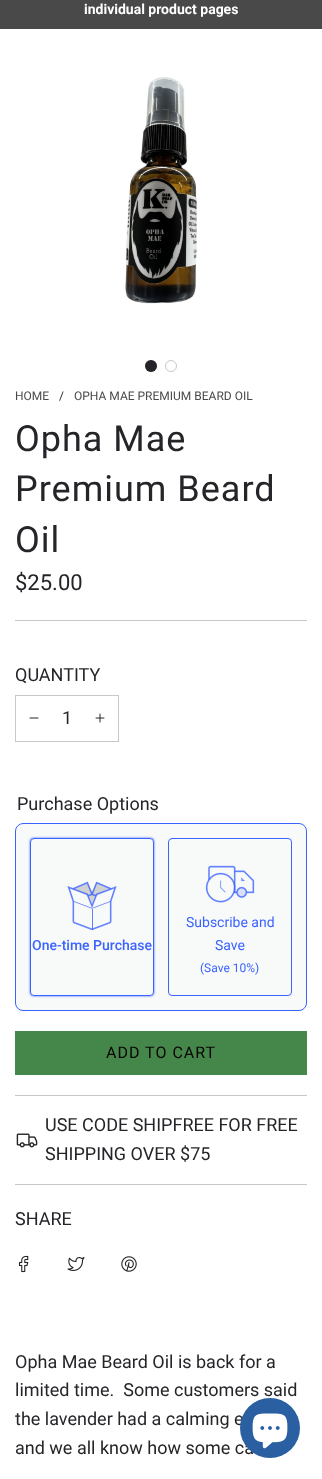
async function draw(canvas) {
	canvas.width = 322;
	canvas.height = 1479;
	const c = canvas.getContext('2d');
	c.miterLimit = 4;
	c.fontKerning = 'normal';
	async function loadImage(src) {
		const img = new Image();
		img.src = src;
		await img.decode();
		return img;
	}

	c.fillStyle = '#fff';
	c.fillRect(0, 0, 322, 1479);
	c.fillStyle = '#494949';
	c.fillRect(0, 0, 322, 29);
	c.font = 'bold 14px Roboto';
	c.fillStyle = '#fff';
	c.fillText('individual product pages', 84, 14);
	c.drawImage(await loadImage('img1.png'), 125, 77, 72, 227);
	c.fillStyle = '#262428';
	c.beginPath();
	c.arc(151, 366, 6, 0, 2 * Math.PI);
	c.fill();
	c.beginPath();
	c.arc(151, 366, 5.5, 0, 2 * Math.PI);
	c.strokeStyle = '#26242840';
	c.stroke();
	c.beginPath();
	c.arc(171, 366, 5.5, 0, 2 * Math.PI);
	c.strokeStyle = '#c9c8c9';
	c.stroke();
	c.font = '12px Roboto';
	c.fillStyle = '#494949';
	c.fillText('HOME', 15, 400);
	c.fillStyle = '#262428';
	c.fillText('/', 59, 400);
	c.fillStyle = '#494949';
	c.fillText('OPHA MAE PREMIUM BEARD OIL', 74, 400);
	c.letterSpacing = '1px';
	c.font = '36px Roboto';
	c.fillStyle = '#262428';
	for (const [text, x, y] of [
		['Opha Mae', 15, 451],
		['Premium Beard', 15, 501],
		['Oil', 15, 552],
	]) {
		c.fillText(text, x, y);
	}
	c.letterSpacing = '0px';
	c.font = '22px Roboto';
	c.fillText('$25.00', 15, 590);
	c.fillStyle = '#c9c8c9';
	c.fillRect(15, 620, 292, 1);
	c.font = '18px Roboto';
	c.fillStyle = '#262428';
	c.fillText('QUANTITY', 15, 681);
	c.strokeRect(15.5, 695.5, 103, 46);
	c.beginPath();
	c.moveTo(30, 718);
	c.lineTo(38, 718);
	c.strokeStyle = '#262428';
	c.lineCap = 'round';
	c.lineJoin = 'round';
	c.stroke();
	c.fillText('1', 62, 724);
	c.drawImage(await loadImage('img2.png'), 95, 713, 10, 10);
	c.fillText('Purchase Options', 17, 810);
	c.fillStyle = '#f8f9f9';
	c.beginPath();
	c.roundRect(15.5, 823.5, 291, 187, 7.5);
	c.fill();
	c.strokeStyle = '#3b63ff';
	c.lineJoin = 'miter';
	c.stroke();
	c.save();
	c.beginPath();
	c.moveTo(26, 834);
	c.lineTo(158, 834);
	c.lineTo(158, 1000);
	c.lineTo(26, 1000);
	c.closePath();
	c.moveTo(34, 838);
	c.lineTo(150, 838);
	c.bezierCurveTo(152, 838, 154, 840, 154, 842);
	c.lineTo(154, 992);
	c.bezierCurveTo(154, 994, 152, 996, 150, 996);
	c.lineTo(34, 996);
	c.bezierCurveTo(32, 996, 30, 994, 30, 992);
	c.lineTo(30, 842);
	c.bezierCurveTo(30, 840, 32, 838, 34, 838);
	c.closePath();
	c.clip('evenodd');
	c.fillStyle = '#3b63ff';
	c.filter = 'blur(1px)';
	c.beginPath();
	c.roundRect(30, 838, 124, 158, 4);
	c.fill();
	c.filter = 'none';
	c.restore();
	c.beginPath();
	c.roundRect(30.5, 838.5, 123, 157, 3.5);
	c.stroke();
	c.drawImage(await loadImage('img3.png'), 67, 881, 50, 50);
	c.font = '500 14px Roboto';
	c.fillStyle = '#3b63ff';
	c.fillText('One-time Purchase', 32, 950);
	c.beginPath();
	c.roundRect(168.5, 838.5, 123, 157, 3.5);
	c.stroke();
	c.drawImage(await loadImage('img4.png'), 205, 865, 50, 38);
	c.font = '14px Roboto';
	c.fillText('Subscribe and', 186, 927);
	c.fillText('Save', 215, 950);
	c.font = '12px Roboto';
	c.fillText('(Save 10%)', 200, 972);
	c.fillStyle = '#45874a';
	c.fillRect(15, 1031, 292, 44);
	c.letterSpacing = '1px';
	c.font = '16px Roboto';
	c.fillStyle = '#0b0505';
	c.fillText('ADD TO CART', 106, 1058);
	c.fillStyle = '#c9c8c9';
	c.fillRect(15, 1095, 292, 1);
	c.fillRect(15, 1184, 292, 1);
	c.drawImage(await loadImage('img5.png'), 16, 1133, 22, 15);
	c.letterSpacing = '0px';
	c.font = '18px Roboto';
	c.fillStyle = '#262428';
	for (const [text, x, y] of [
		['USE CODE SHIPFREE FOR FREE', 45, 1131],
		['SHIPPING OVER $75', 45, 1160],
		['SHARE', 15, 1225],
	]) {
		c.fillText(text, x, y);
	}
	c.drawImage(await loadImage('img6.png'), 18, 1255, 11, 18);
	c.drawImage(await loadImage('img7.png'), 67, 1257, 18, 14);
	c.drawImage(await loadImage('img8.png'), 121, 1256, 16, 16);
	for (const [text, x, y] of [
		['Opha Mae Beard Oil is back for a', 15, 1368],
		['limited time.  Some customers said', 15, 1396],
		['the lavender had a calming e', 15, 1425],
		['and we all know how some ca', 15, 1454],
	]) {
		c.fillText(text, x, y);
	}
	c.fillStyle = '#2a60a1';
	c.beginPath();
	c.arc(270, 1428, 30, 0, 2 * Math.PI);
	c.fill();
	c.drawImage(await loadImage('img9.png'), 252, 1413, 36, 36);
}

draw(document.querySelector('canvas'));
